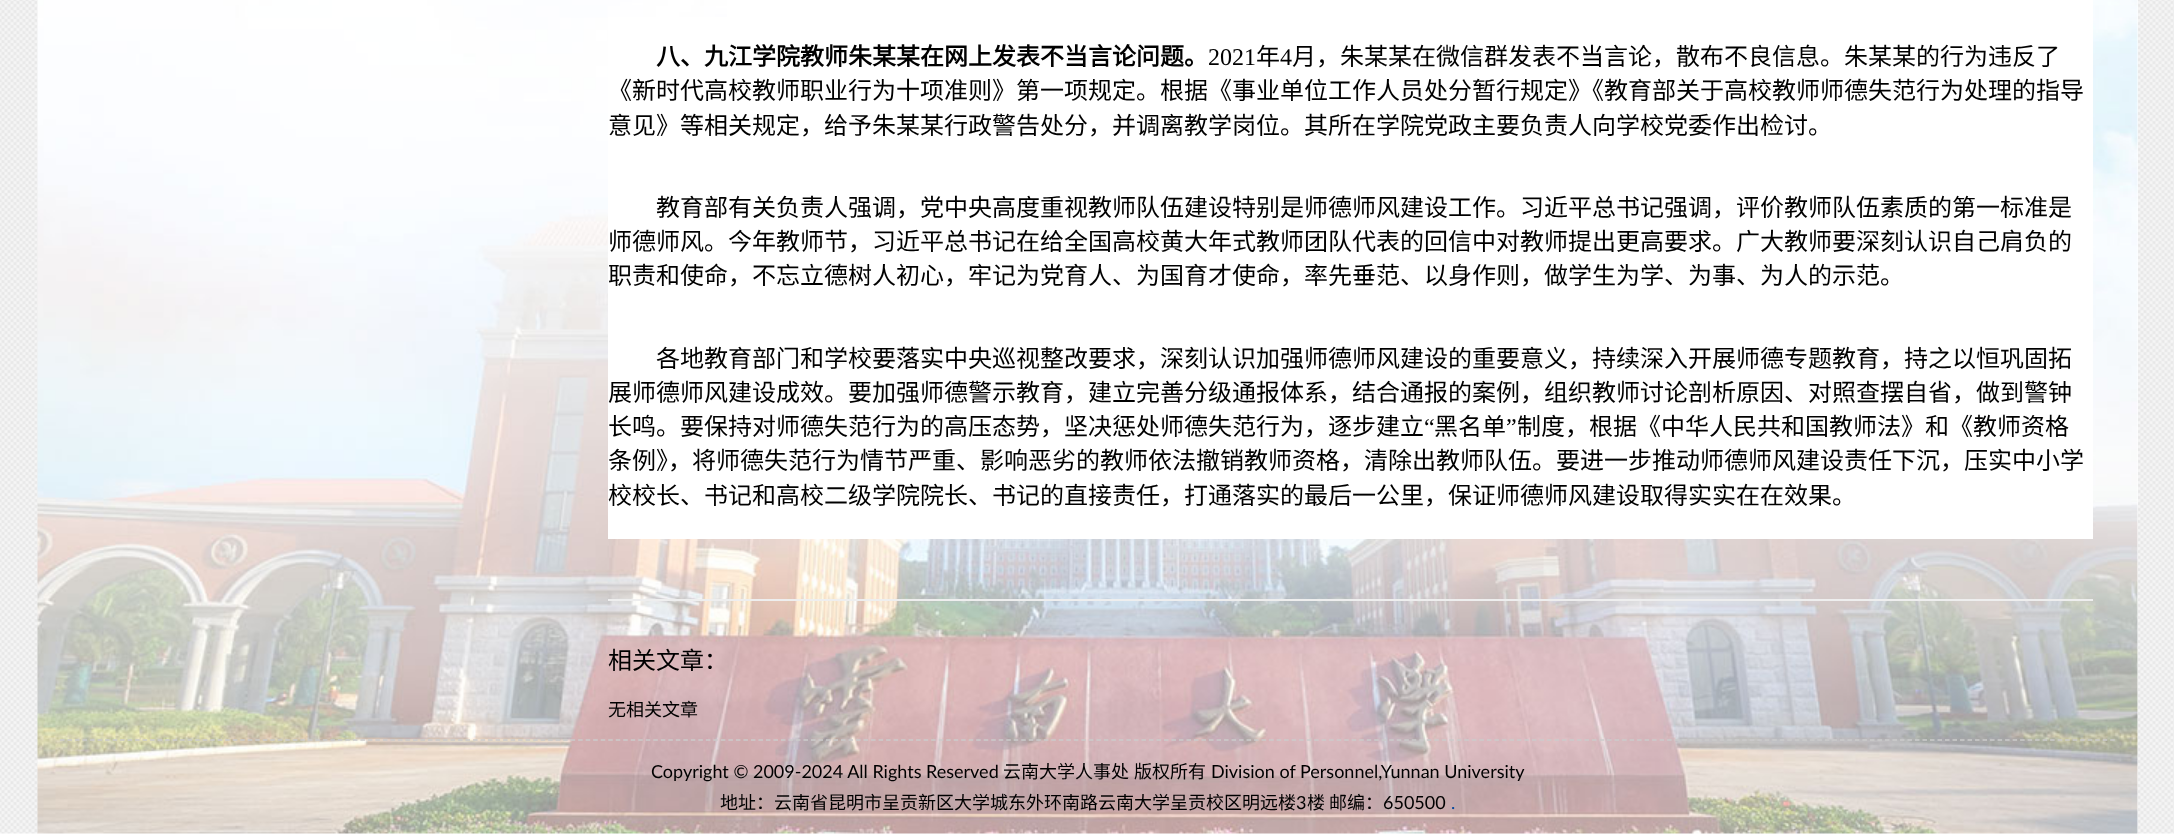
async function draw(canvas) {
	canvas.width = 2174;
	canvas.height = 834;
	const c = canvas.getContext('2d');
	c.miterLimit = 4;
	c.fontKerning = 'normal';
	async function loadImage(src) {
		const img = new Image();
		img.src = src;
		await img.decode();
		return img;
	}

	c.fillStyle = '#fff';
	c.fillRect(0, 0, 2174, 834);
	c.drawImage(await loadImage('img1.png'), 0, 0, 2174, 834);
	c.fillRect(38, 0, 2100, 834);
	c.drawImage(await loadImage('img2.png'), 37, 0, 2101, 834);
	c.fillRect(727, 0, 1366, 17);
	c.fillRect(608, 17, 1485, 522);
	c.font = 'bold 24px Noto Sans CJK SC';
	c.fillStyle = '#000';
	c.fillText('八、九江学院教师朱某某在网上发表不当言论问题。', 656, 65);
	c.font = '24px Liberation Serif';
	c.fillText('2021', 1208, 65);
	c.font = '24px Noto Sans CJK SC';
	c.fillText('年', 1256, 65);
	c.font = '24px Liberation Serif';
	c.fillText('4', 1280, 65);
	c.font = '24px Noto Sans CJK SC';
	for (const [text, x, y] of [
		['月，朱某某在微信群发表不当言论，散布不良信息。朱某某的行为违反了', 1292, 65],
		['《新时代高校教师职业行为十项准则》第一项规定。根据《事业单位工作人员处分暂行规定》《教育部关于高校教师师德失范行为处理的指导', 608, 99],
		['意见》等相关规定，给予朱某某行政警告处分，并调离教学岗位。其所在学院党政主要负责人向学校党委作出检讨。', 608, 134],
		['教育部有关负责人强调，党中央高度重视教师队伍建设特别是师德师风建设工作。习近平总书记强调，评价教师队伍素质的第一标准是', 656, 216],
		['师德师风。今年教师节，习近平总书记在给全国高校黄大年式教师团队代表的回信中对教师提出更高要求。广大教师要深刻认识自己肩负的', 608, 250],
		['职责和使命，不忘立德树人初心，牢记为党育人、为国育才使命，率先垂范、以身作则，做学生为学、为事、为人的示范。', 608, 284],
		['各地教育部门和学校要落实中央巡视整改要求，深刻认识加强师德师风建设的重要意义，持续深入开展师德专题教育，持之以恒巩固拓', 656, 367],
		['展师德师风建设成效。要加强师德警示教育，建立完善分级通报体系，结合通报的案例，组织教师讨论剖析原因、对照查摆自省，做到警钟', 608, 401],
		['长鸣。要保持对师德失范行为的高压态势，坚决惩处师德失范行为，逐步建立', 608, 435],
	]) {
		c.fillText(text, x, y);
	}
	c.font = '24px Liberation Serif';
	c.fillText('“', 1424, 435);
	c.font = '24px Noto Sans CJK SC';
	c.fillText('黑名单', 1434, 435);
	c.font = '24px Liberation Serif';
	c.fillText('”', 1506, 435);
	c.font = '24px Noto Sans CJK SC';
	for (const [text, x, y] of [
		['制度，根据《中华人民共和国教师法》和《教师资格', 1517, 435],
		['条例》，将师德失范行为情节严重、影响恶劣的教师依法撤销教师资格，清除出教师队伍。要进一步推动师德师风建设责任下沉，压实中小学', 608, 469],
		['校校长、书记和高校二级学院院长、书记的直接责任，打通落实的最后一公里，保证师德师风建设取得实实在在效果。', 608, 504],
	]) {
		c.fillText(text, x, y);
	}
	c.fillStyle = '#eee';
	c.fillRect(608, 599, 1485, 2);
	c.fillStyle = '#000';
	c.fillText('相关文章：', 608, 669);
	c.font = '18px Noto Sans CJK SC';
	c.fillText('无相关文章', 608, 716);
	c.beginPath();
	c.moveTo(60, 740);
	c.lineTo(2115, 740);
	c.strokeStyle = '#ccc';
	c.lineWidth = 1.5;
	c.setLineDash([4.5, 3.01]);
	c.stroke();
	c.font = '18px Lato';
	c.fillText('Copyright © 2009-2024 All Rights Reserved', 651, 778);
	c.font = '18px Noto Sans CJK SC';
	c.fillText('云南大学人事处', 1003, 778);
	c.fillText('版权所有', 1134, 778);
	c.font = '18px Lato';
	c.fillText('Division of Personnel,Yunnan University', 1211, 778);
	c.font = '18px Noto Sans CJK SC';
	c.fillText('地址：云南省昆明市呈贡新区大学城东外环南路云南大学呈贡校区明远楼', 720, 809);
	c.font = '18px Lato';
	c.fillText('3', 1296, 809);
	c.font = '18px Noto Sans CJK SC';
	c.fillText('楼 邮编：', 1307, 809);
	c.font = '18px Lato';
	c.fillText('650500', 1383, 809);
	c.fillStyle = '#02469b';
	c.fillText('.', 1451, 809);
}

draw(document.querySelector('canvas'));
